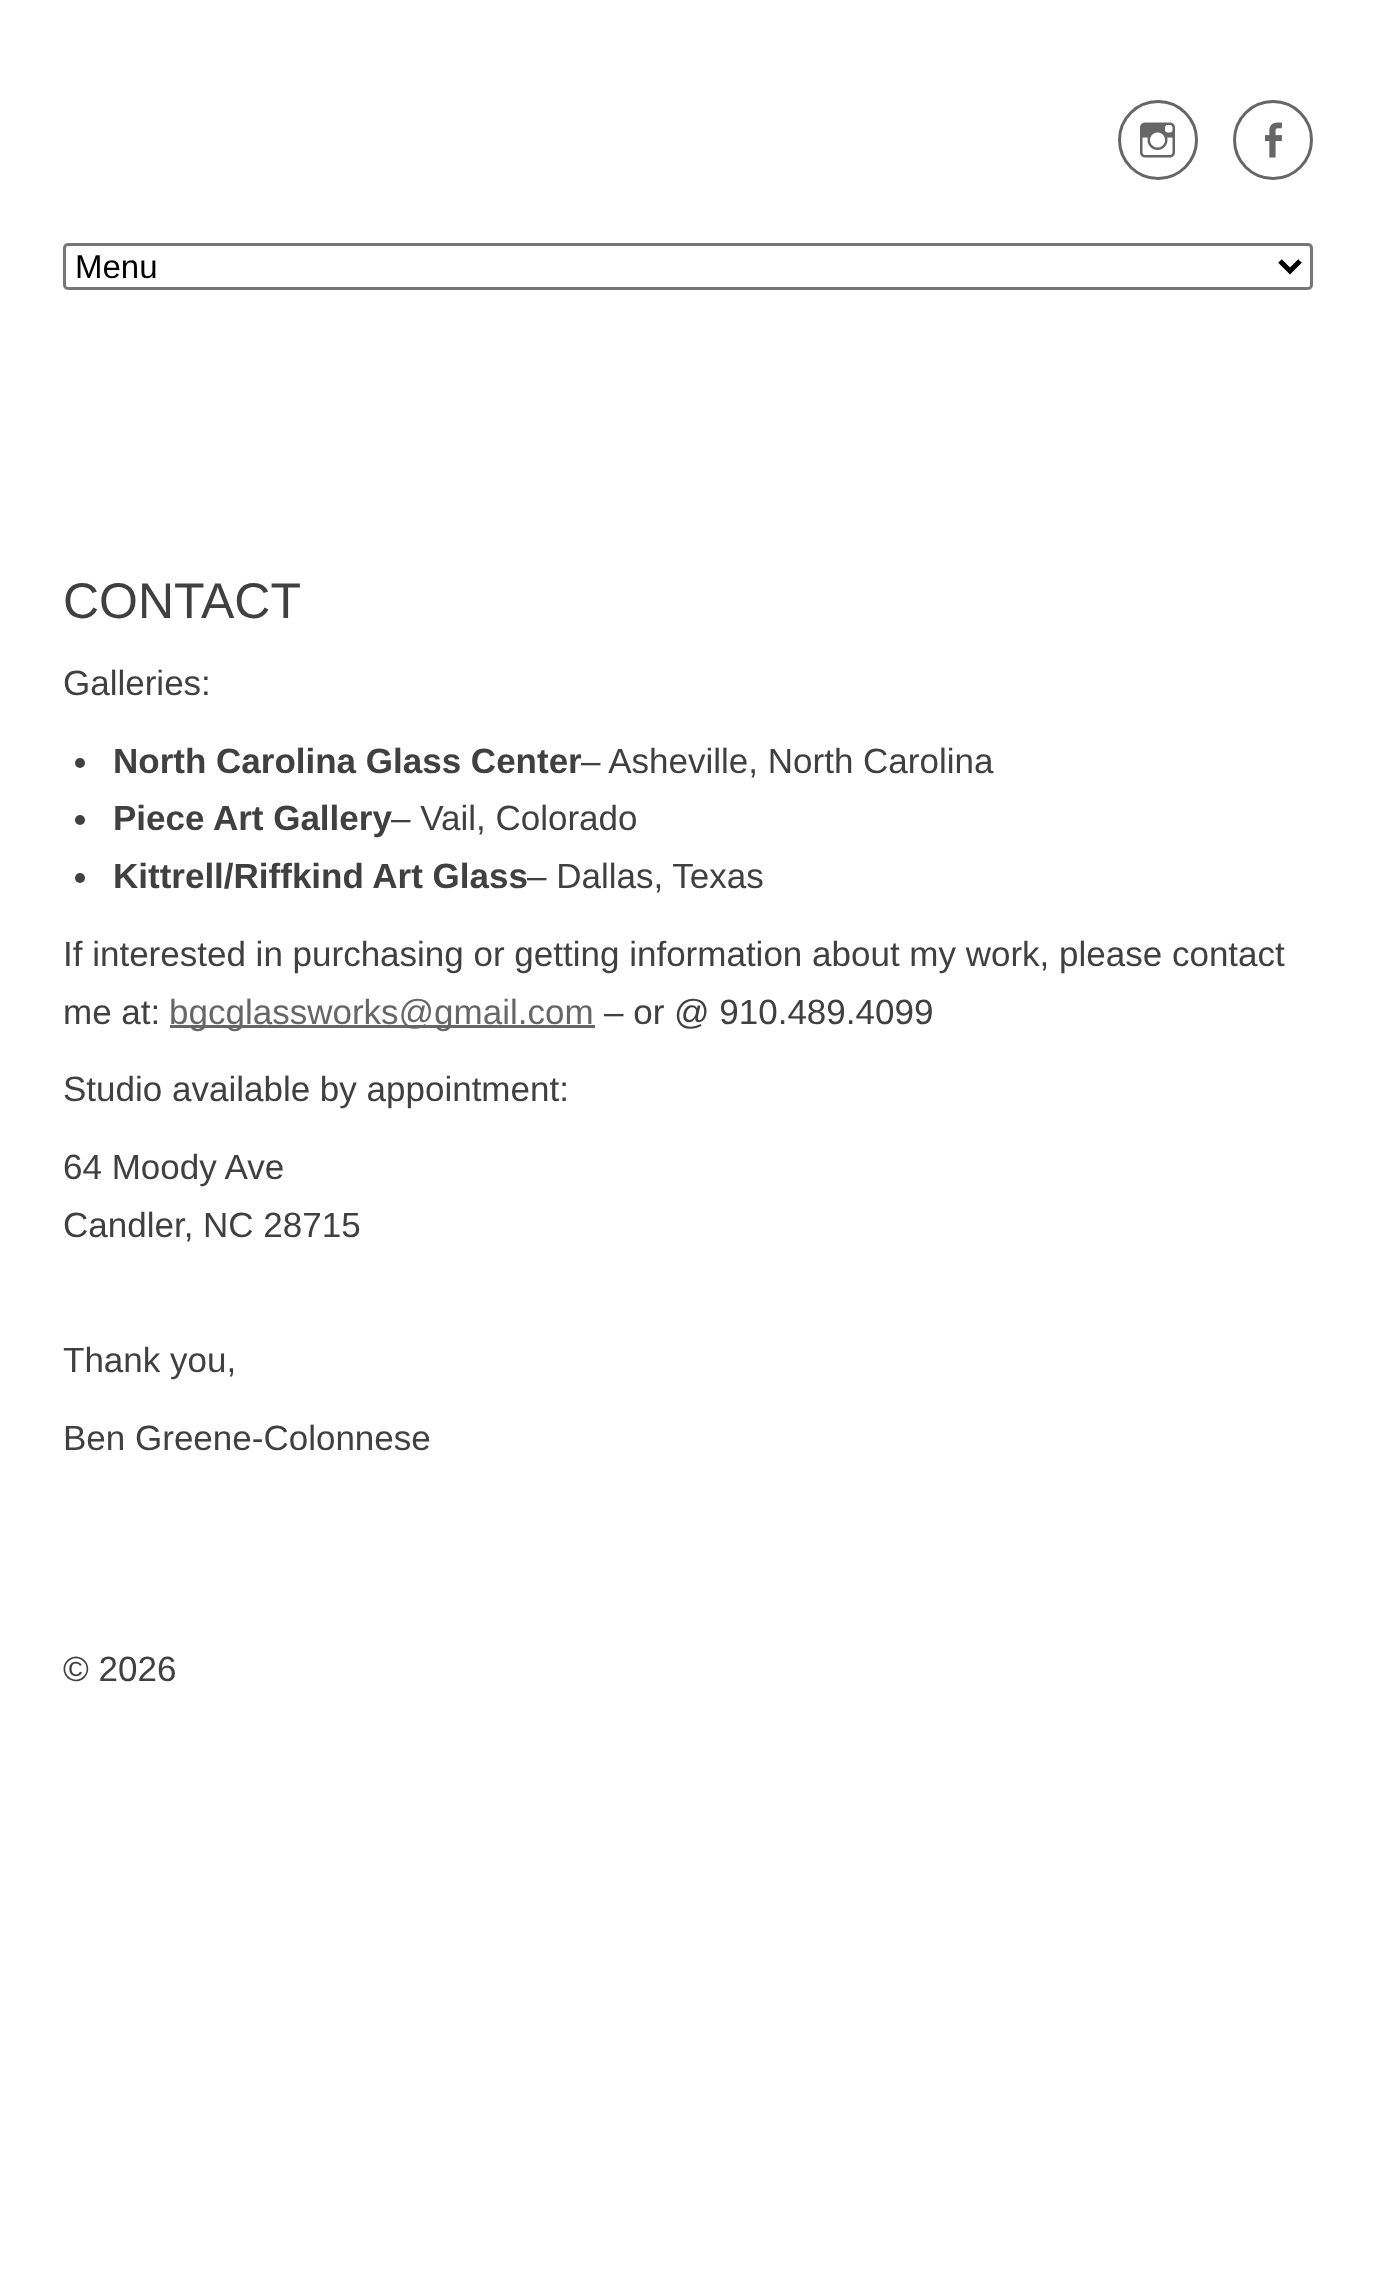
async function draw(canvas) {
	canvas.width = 1373;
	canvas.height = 2293;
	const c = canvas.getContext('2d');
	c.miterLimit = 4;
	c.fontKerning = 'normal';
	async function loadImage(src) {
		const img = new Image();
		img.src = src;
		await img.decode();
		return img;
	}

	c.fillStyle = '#fff';
	c.fillRect(0, 0, 1373, 2293);
	c.beginPath();
	c.arc(1158, 140, 38.5, 0, 2 * Math.PI);
	c.strokeStyle = '#666';
	c.lineWidth = 3;
	c.stroke();
	c.drawImage(await loadImage('img1.png'), 1140, 122, 35, 36);
	c.beginPath();
	c.arc(1273, 140, 38.5, 0, 2 * Math.PI);
	c.stroke();
	c.drawImage(await loadImage('img2.png'), 1265, 122, 17, 36);
	c.beginPath();
	c.roundRect(64.5, 244.5, 1247, 44, 3.5);
	c.strokeStyle = '#767676';
	c.stroke();
	c.beginPath();
	c.moveTo(1280, 261);
	c.lineTo(1290, 271);
	c.lineTo(1300, 261);
	c.strokeStyle = '#000';
	c.lineWidth = 5;
	c.stroke();
	c.font = '33px Liberation Sans';
	c.fillStyle = '#000';
	c.fillText('Menu', 75, 278);
	c.font = '50px Liberation Sans';
	c.fillStyle = '#404040';
	c.fillText('CONTACT', 63, 618);
	c.font = '35px Liberation Sans';
	c.fillText('Galleries:', 63, 695);
	c.beginPath();
	c.arc(80, 763, 5, 0, 2 * Math.PI);
	c.fill();
	c.font = 'bold 35px Liberation Sans';
	c.fillText('North Carolina Glass Center', 113, 773);
	c.font = '35px Liberation Sans';
	c.fillText('– Asheville, North Carolina', 581, 773);
	c.beginPath();
	c.arc(80, 820, 5, 0, 2 * Math.PI);
	c.fill();
	c.font = 'bold 35px Liberation Sans';
	c.fillText('Piece Art Gallery', 113, 830);
	c.font = '35px Liberation Sans';
	c.fillText('– Vail, Colorado', 391, 830);
	c.beginPath();
	c.arc(80, 878, 5, 0, 2 * Math.PI);
	c.fill();
	c.font = 'bold 35px Liberation Sans';
	c.fillText('Kittrell/Riffkind Art Glass', 113, 888);
	c.font = '35px Liberation Sans';
	for (const [text, x, y] of [
		['– Dallas, Texas', 527, 888],
		['If interested in purchasing or getting information about my work, please contact', 63, 966],
		['me at:', 63, 1024],
	]) {
		c.fillText(text, x, y);
	}
	c.fillStyle = '#666';
	c.fillRect(170, 1025, 425, 3);
	c.fillText('bgcglassworks@gmail.com', 169, 1024);
	c.fillStyle = '#404040';
	for (const [text, x, y] of [
		['– or @ 910.489.4099', 604, 1024],
		['Studio available by appointment:', 63, 1101],
		['64 Moody Ave', 63, 1179],
		['Candler, NC 28715', 63, 1237],
		['Thank you,', 63, 1372],
		['Ben Greene-Colonnese', 63, 1450],
		['© 2026', 63, 1681],
	]) {
		c.fillText(text, x, y);
	}
}

draw(document.querySelector('canvas'));
